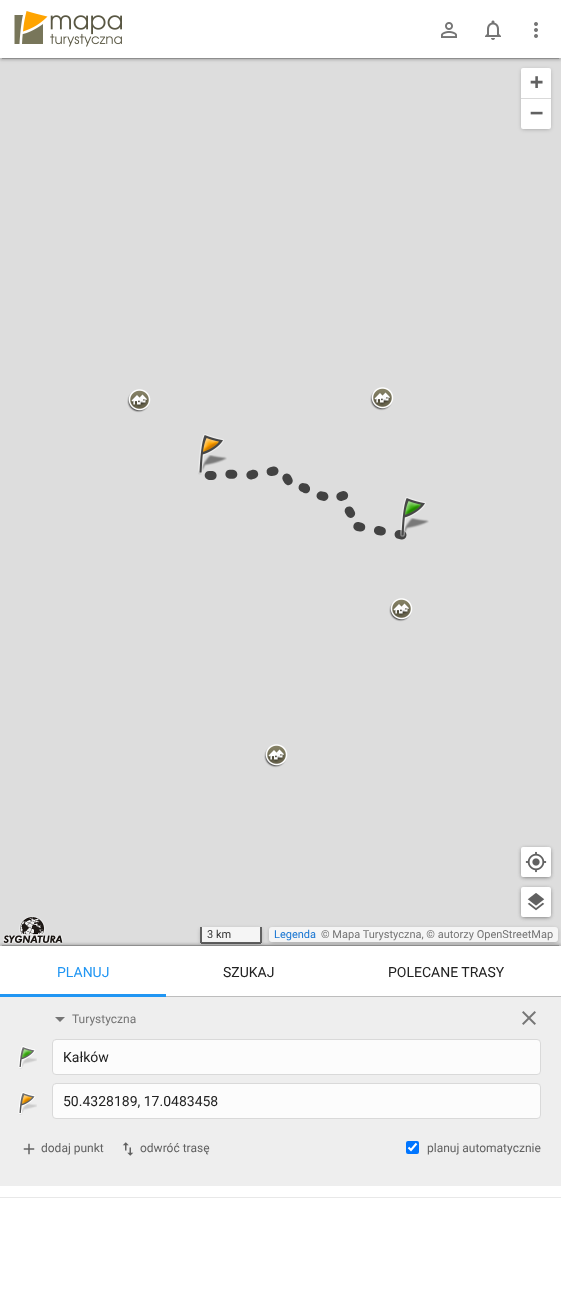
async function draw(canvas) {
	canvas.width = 561;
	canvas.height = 1297;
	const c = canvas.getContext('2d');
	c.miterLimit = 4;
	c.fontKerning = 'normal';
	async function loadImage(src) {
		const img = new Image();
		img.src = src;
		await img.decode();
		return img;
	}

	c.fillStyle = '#ddd';
	c.fillRect(0, 0, 561, 1297);
	c.fillStyle = '#0000004d';
	c.filter = 'blur(2px)';
	c.beginPath();
	c.roundRect(522, 70, 28, 59, 1);
	c.fill();
	c.filter = 'none';
	c.fillStyle = '#fff';
	c.beginPath();
	c.roundRect(521, 68, 30, 31, [2, 2, 0, 0]);
	c.fill();
	c.fillStyle = '#d9d9d9';
	c.fillRect(521, 98, 30, 1);
	c.font = 'bold 22px DejaVu Sans Mono';
	c.fillStyle = '#616161';
	c.fillText('+', 530, 89);
	c.fillStyle = '#fff';
	c.beginPath();
	c.roundRect(521, 99, 30, 30, [0, 0, 2, 2]);
	c.fill();
	c.fillStyle = '#616161';
	c.fillText('−', 530, 120);
	c.drawImage(await loadImage('img1.png'), 3, 916, 60, 28);
	c.fillStyle = '#0000004d';
	c.filter = 'blur(2px)';
	c.beginPath();
	c.roundRect(522, 849, 28, 28, 1);
	c.fill();
	c.filter = 'none';
	c.filter = 'blur(2px)';
	c.beginPath();
	c.roundRect(522, 849, 28, 28, 1);
	c.fill();
	c.filter = 'none';
	c.fillStyle = '#fff';
	c.beginPath();
	c.roundRect(521, 847, 30, 30, 2);
	c.fill();
	c.drawImage(await loadImage('img2.png'), 525, 851, 22, 22);
	c.fillStyle = '#0000004d';
	c.filter = 'blur(2px)';
	c.beginPath();
	c.roundRect(522, 889, 28, 28, 1);
	c.fill();
	c.filter = 'none';
	c.filter = 'blur(2px)';
	c.beginPath();
	c.roundRect(522, 889, 28, 28, 1);
	c.fill();
	c.filter = 'none';
	c.fillStyle = '#fff';
	c.beginPath();
	c.roundRect(521, 887, 30, 30, 2);
	c.fill();
	c.drawImage(await loadImage('img3.png'), 527, 893, 18, 18);
	c.save();
	c.beginPath();
	c.moveTo(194, 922);
	c.lineTo(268, 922);
	c.lineTo(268, 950);
	c.lineTo(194, 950);
	c.closePath();
	c.moveTo(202, 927);
	c.lineTo(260, 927);
	c.bezierCurveTo(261, 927, 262, 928, 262, 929);
	c.lineTo(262, 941);
	c.bezierCurveTo(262, 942, 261, 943, 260, 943);
	c.lineTo(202, 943);
	c.bezierCurveTo(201, 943, 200, 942, 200, 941);
	c.lineTo(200, 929);
	c.bezierCurveTo(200, 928, 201, 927, 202, 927);
	c.closePath();
	c.clip('evenodd');
	c.fillStyle = '#0000004d';
	c.filter = 'blur(2px)';
	c.beginPath();
	c.roundRect(201, 929, 60, 14, 1);
	c.fill();
	c.filter = 'none';
	c.restore();
	c.fillStyle = '#ffffffb3';
	c.beginPath();
	c.roundRect(200, 927, 62, 17, [0, 0, 2, 2]);
	c.fill();
	for (const [x, y, w, h, color] of [
		[260, 927, 2, 16, '#616161'],
		[201, 942, 60, 2, '#616161'],
		[200, 927, 2, 16, '#616161'],
	]) {
		c.fillStyle = color;
		c.fillRect(x, y, w, h);
	}
	c.font = '11px Roboto';
	c.fillStyle = '#333';
	c.fillText('3 km', 207, 938);
	c.save();
	c.beginPath();
	c.moveTo(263, 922);
	c.lineTo(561, 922);
	c.lineTo(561, 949);
	c.lineTo(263, 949);
	c.closePath();
	c.moveTo(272, 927);
	c.lineTo(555, 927);
	c.bezierCurveTo(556.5, 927, 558, 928.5, 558, 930);
	c.lineTo(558, 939);
	c.bezierCurveTo(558, 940.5, 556.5, 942, 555, 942);
	c.lineTo(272, 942);
	c.bezierCurveTo(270.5, 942, 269, 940.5, 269, 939);
	c.lineTo(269, 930);
	c.bezierCurveTo(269, 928.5, 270.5, 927, 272, 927);
	c.closePath();
	c.clip('evenodd');
	c.fillStyle = '#0000004d';
	c.filter = 'blur(2px)';
	c.beginPath();
	c.roundRect(270, 929, 287, 13, 2);
	c.fill();
	c.filter = 'none';
	c.restore();
	c.fillStyle = '#ffffffb3';
	c.beginPath();
	c.roundRect(269, 927, 289, 15, 3);
	c.fill();
	c.fillStyle = '#1976d2';
	c.fillText('Legenda', 274, 938);
	c.fillStyle = '#757575';
	c.fillText('© Mapa Turystyczna, © autorzy OpenStreetMap', 321, 938);
	c.drawImage(await loadImage('img4.png'), 127, 389, 24, 24);
	c.drawImage(await loadImage('img4.png'), 370, 387, 24, 24);
	c.beginPath();
	c.moveTo(402, 535);
	c.lineTo(355, 526);
	c.lineTo(352, 523);
	c.lineTo(354, 519);
	c.lineTo(348, 509);
	c.lineTo(345, 495);
	c.lineTo(334, 499);
	c.lineTo(331, 497);
	c.lineTo(326, 497);
	c.lineTo(318, 495);
	c.lineTo(316, 493);
	c.lineTo(308, 492);
	c.lineTo(305, 488);
	c.lineTo(300, 487);
	c.lineTo(296, 483);
	c.lineTo(292, 484);
	c.lineTo(289, 482);
	c.lineTo(284, 473);
	c.lineTo(280, 473);
	c.lineTo(279, 470);
	c.lineTo(264, 473);
	c.lineTo(261, 472);
	c.lineTo(251, 475);
	c.lineTo(226, 474);
	c.lineTo(219, 476);
	c.lineTo(203, 475);
	c.lineTo(201, 472);
	c.strokeStyle = '#424242';
	c.lineWidth = 9;
	c.lineCap = 'round';
	c.lineJoin = 'round';
	c.setLineDash([3, 18]);
	c.stroke();
	c.drawImage(await loadImage('img5.png'), 198, 434, 29, 41);
	c.drawImage(await loadImage('img6.png'), 400, 497, 29, 40);
	c.drawImage(await loadImage('img4.png'), 389, 598, 24, 24);
	c.drawImage(await loadImage('img4.png'), 264, 744, 24, 24);
	c.fillStyle = '#0000001f';
	c.filter = 'blur(2.5px)';
	c.beginPath();
	c.rect(0, 945, 561, 251);
	c.fill();
	c.filter = 'none';
	c.fillStyle = '#00000033';
	c.filter = 'blur(0.5px)';
	c.beginPath();
	c.rect(2, 945, 557, 247);
	c.fill();
	c.filter = 'none';
	c.fillStyle = '#00000024';
	c.filter = 'blur(1px)';
	c.beginPath();
	c.rect(0, 944, 561, 251);
	c.fill();
	c.filter = 'none';
	c.fillStyle = '#fff';
	c.fillRect(0, 946, 561, 251);
	c.fillStyle = '#0000001f';
	c.filter = 'blur(2.5px)';
	c.beginPath();
	c.rect(0, 1, 561, 58);
	c.fill();
	c.filter = 'none';
	c.fillStyle = '#00000033';
	c.filter = 'blur(0.5px)';
	c.beginPath();
	c.rect(2, 5, 557, 54);
	c.fill();
	c.filter = 'none';
	c.fillStyle = '#00000024';
	c.filter = 'blur(1px)';
	c.beginPath();
	c.rect(0, 2, 561, 58);
	c.fill();
	c.filter = 'none';
	c.fillStyle = '#fff';
	c.fillRect(0, 0, 561, 58);
	c.drawImage(await loadImage('img7.png'), 14, 11, 108, 36);
	c.drawImage(await loadImage('img8.png'), 441, 22, 16, 16);
	c.drawImage(await loadImage('img9.png'), 485, 20, 16, 20);
	c.drawImage(await loadImage('img10.png'), 534, 22, 4, 16);
	c.fillStyle = '#bdbdbd';
	c.fillRect(166, 996, 395, 1);
	c.fillStyle = '#2196f3';
	c.fillRect(0, 994, 166, 3);
	c.font = '14px Roboto';
	c.fillText('PLANUJ', 57, 977);
	c.fillStyle = '#212121';
	c.fillText('SZUKAJ', 223, 977);
	c.fillText('POLECANE TRASY', 388, 977);
	c.fillStyle = '#eee';
	c.fillRect(0, 997, 561, 189);
	c.fillStyle = '#757575';
	c.beginPath();
	c.moveTo(55, 1017);
	c.lineTo(65, 1017);
	c.lineTo(60, 1022);
	c.closePath();
	c.fill();
	c.font = '12px Roboto';
	c.fillText('Turystyczna', 72, 1023);
	c.drawImage(await loadImage('img11.png'), 522, 1011, 14, 14);
	c.drawImage(await loadImage('img12.png'), 18, 1046, 19, 23);
	c.fillStyle = '#fcfcfc';
	c.beginPath();
	c.roundRect(52.5, 1039.5, 488, 35, 3.5);
	c.fill();
	c.strokeStyle = '#d9d9d9';
	c.lineWidth = 1;
	c.lineJoin = 'miter';
	c.setLineDash([]);
	c.stroke();
	c.font = '14px Roboto';
	c.fillStyle = '#212121';
	c.fillText('Kałków', 63, 1062);
	c.fillStyle = '#fcfcfc';
	c.beginPath();
	c.roundRect(52.5, 1083.5, 488, 35, 3.5);
	c.fill();
	c.stroke();
	c.fillStyle = '#212121';
	c.fillText('50.4328189, 17.0483458', 63, 1106);
	c.drawImage(await loadImage('img13.png'), 18, 1092, 19, 23);
	c.drawImage(await loadImage('img14.png'), 23, 1143, 12, 12);
	c.font = '12px Roboto';
	c.fillStyle = '#616161';
	c.fillText('dodaj punkt', 41, 1152);
	c.drawImage(await loadImage('img15.png'), 122, 1142, 12, 14);
	c.fillText('odwróć trasę', 140, 1152);
	c.fillStyle = '#0075ff';
	c.beginPath();
	c.roundRect(406, 1141, 13, 13, 2);
	c.fill();
	c.beginPath();
	c.moveTo(408.5, 1147.5);
	c.lineTo(411, 1150);
	c.lineTo(416.5, 1143.5);
	c.strokeStyle = '#fff';
	c.lineWidth = 2.1;
	c.lineCap = 'butt';
	c.stroke();
	c.fillStyle = '#616161';
	c.fillText('planuj automatycznie', 427, 1152);
	c.fillStyle = '#fff';
	c.fillRect(0, 1198, 561, 99);
	c.fillStyle = '#e8e8e8';
	c.fillRect(0, 1197, 561, 1);
}

draw(document.querySelector('canvas'));
